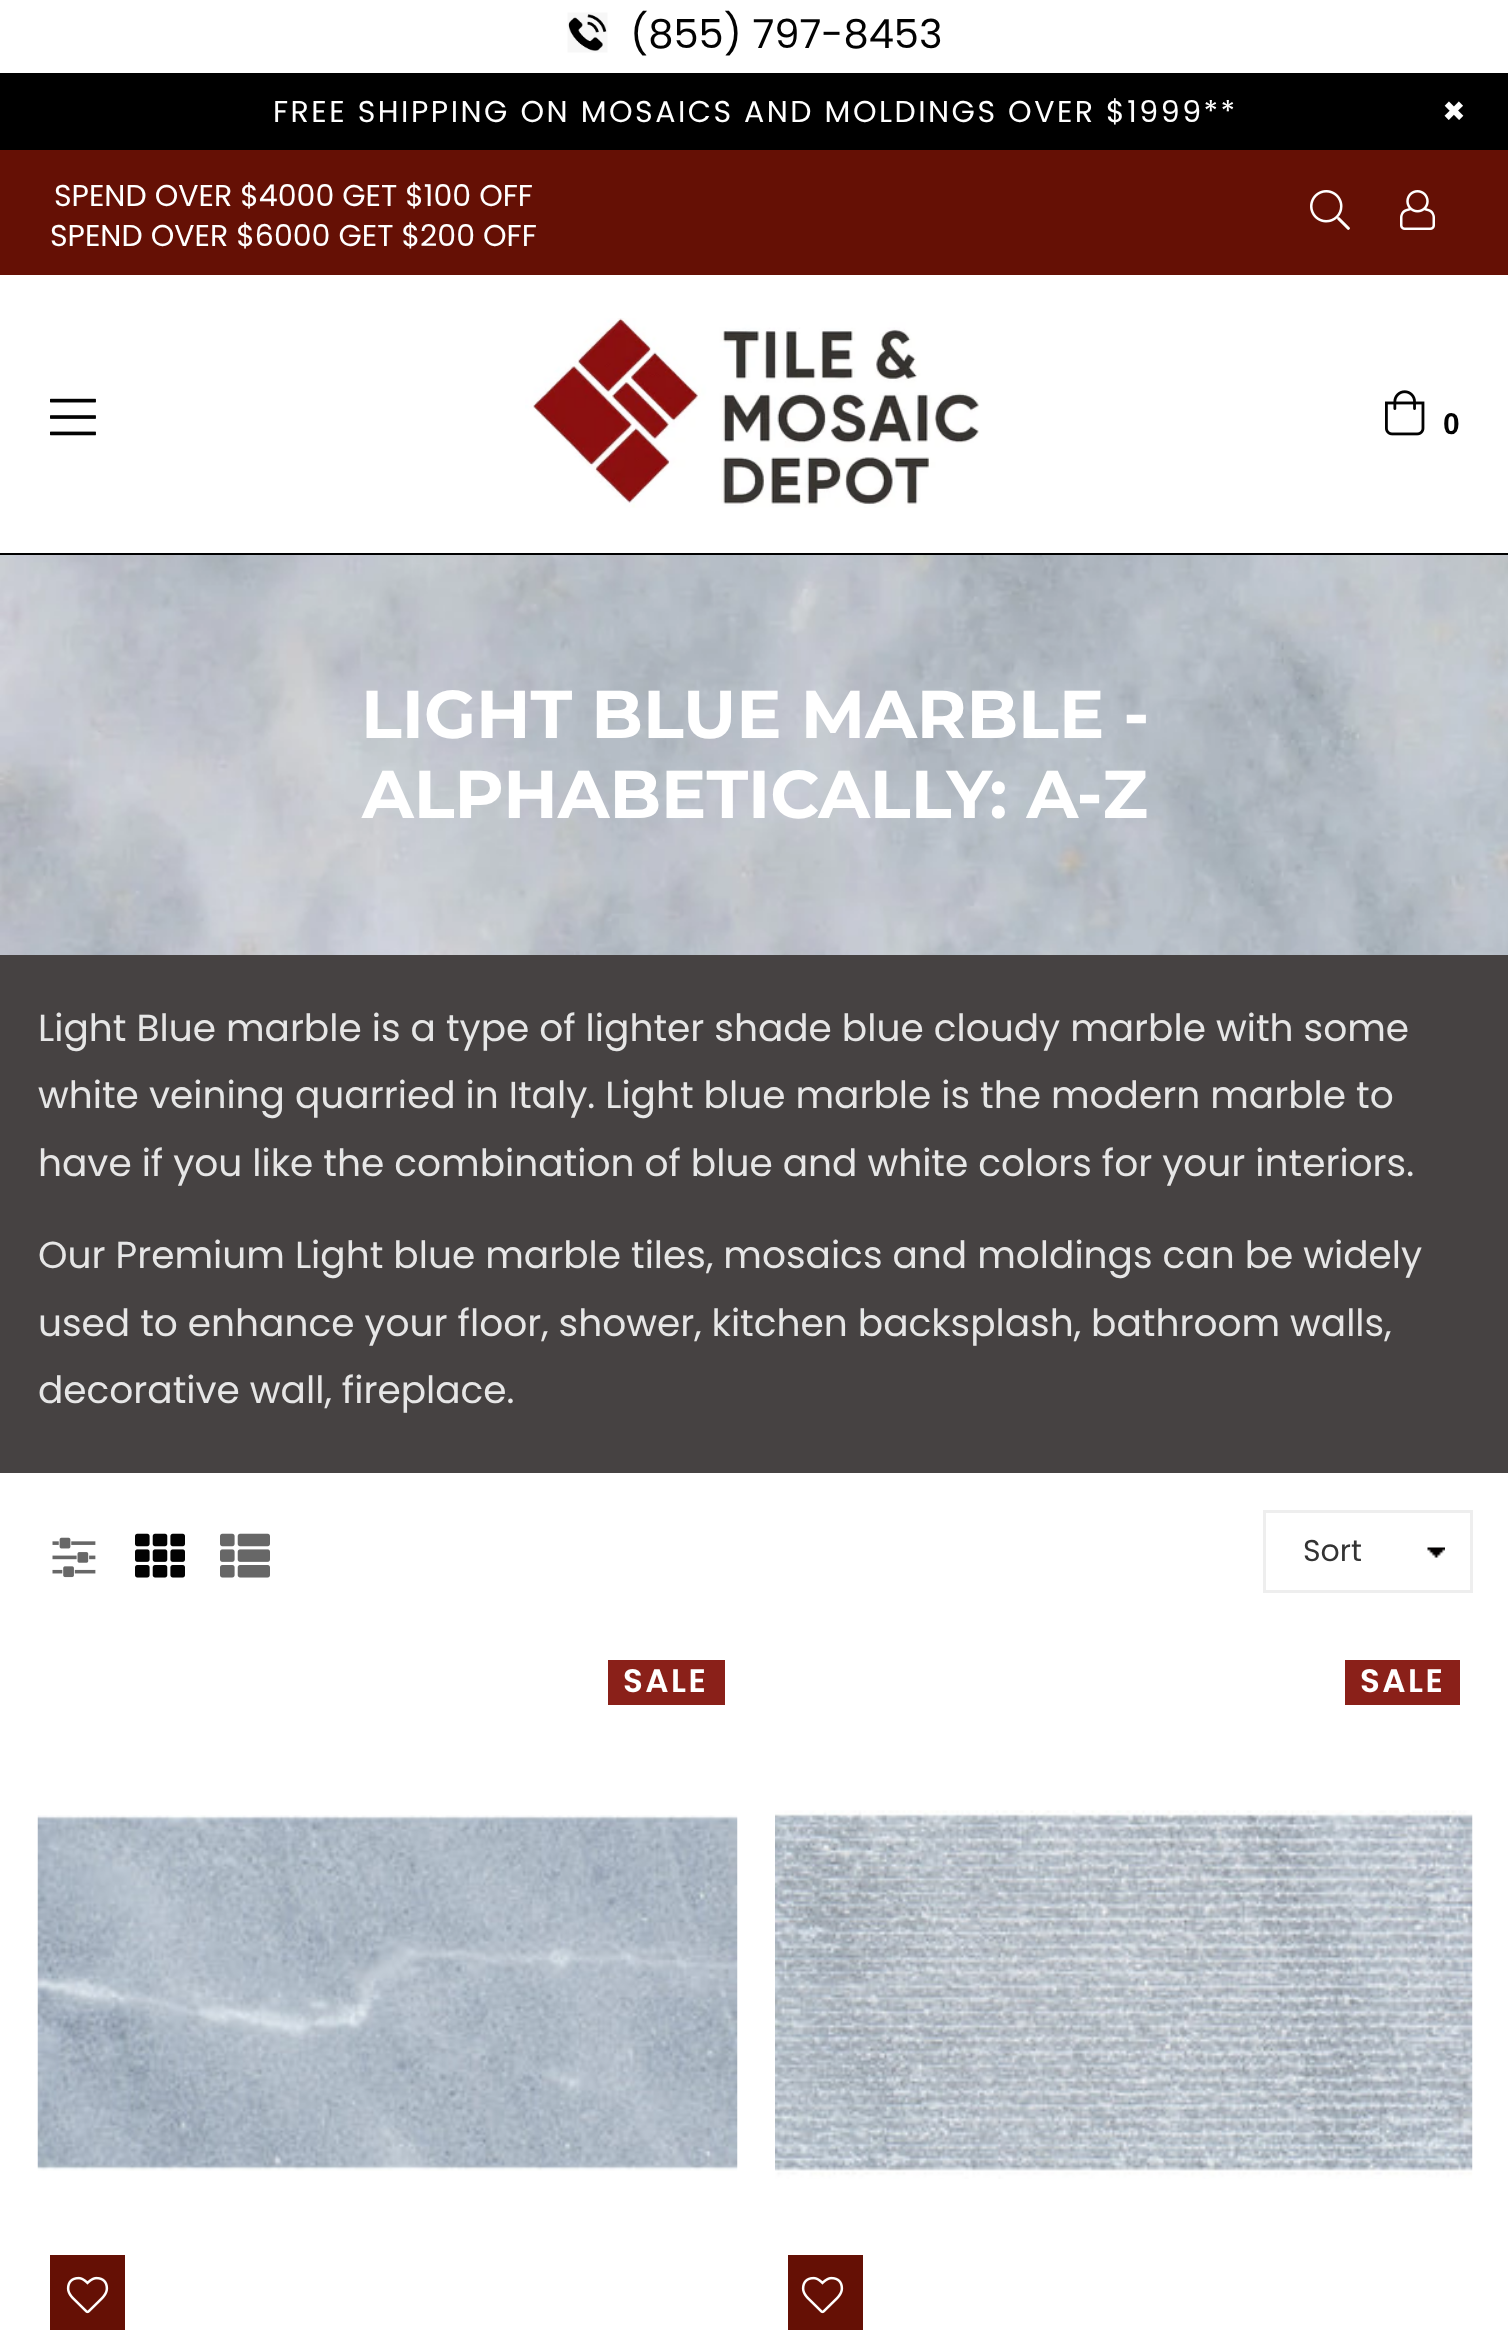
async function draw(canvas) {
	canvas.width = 1508;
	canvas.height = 2338;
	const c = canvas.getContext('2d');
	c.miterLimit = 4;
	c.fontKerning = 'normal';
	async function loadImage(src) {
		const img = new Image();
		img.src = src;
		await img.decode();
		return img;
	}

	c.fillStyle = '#fff';
	c.fillRect(0, 0, 1508, 2338);
	c.drawImage(await loadImage('img1.png'), 567, 12, 41, 41);
	c.font = '40px Poppins';
	c.fillStyle = '#020202';
	c.fillText('(855) 797-8453', 630, 48);
	c.fillStyle = '#000';
	c.fillRect(0, 73, 1508, 77);
	c.letterSpacing = '2.5px';
	c.font = '30px Poppins';
	c.fillStyle = '#fff';
	c.fillText('FREE SHIPPING ON MOSAICS AND MOLDINGS OVER $1999**', 273, 122);
	c.letterSpacing = '0px';
	c.font = 'bold 37.5px Poppins';
	c.fillText('×', 1442, 124);
	c.fillStyle = '#651005';
	c.fillRect(0, 150, 1508, 125);
	c.font = '30px Poppins';
	c.fillStyle = '#fff';
	c.fillText('SPEND OVER $4000 GET $100 OFF', 54, 206);
	c.fillText('SPEND OVER $6000 GET $200 OFF', 50, 246);
	c.drawImage(await loadImage('img2.png'), 1310, 190, 40, 40);
	c.drawImage(await loadImage('img3.png'), 1400, 190, 35, 40);
	c.fillStyle = '#000';
	c.fillRect(0, 553, 1508, 2);
	c.drawImage(await loadImage('img4.png'), 50, 398, 46, 38);
	c.drawImage(await loadImage('img5.png'), 525, 318, 455, 190);
	c.drawImage(await loadImage('img6.png'), 1385, 390, 40, 46);
	c.font = 'bold 30px Liberation Sans';
	c.fillStyle = '#020202';
	c.fillText('0', 1443, 434);
	c.fillStyle = '#464242';
	c.fillRect(0, 955, 1508, 518);
	c.drawImage(await loadImage('img7.png'), 0, 555, 1508, 400);
	c.font = 'bold 67.5px Montserrat';
	c.fillStyle = '#fff';
	c.fillText('LIGHT BLUE MARBLE -', 361, 738);
	c.fillText('ALPHABETICALLY: A-Z', 362, 818);
	c.font = '37.5px Poppins';
	c.fillStyle = '#e6e6e6';
	for (const [text, x, y] of [
		['Light Blue marble is a type of lighter shade blue cloudy marble with some', 38, 1041],
		['white veining quarried in Italy. Light blue marble is the modern marble to', 38, 1108],
		['have if you like the combination of blue and white colors for your interiors.', 38, 1176],
		['Our Premium Light blue marble tiles, mosaics and moldings can be widely', 38, 1268],
		['used to enhance your floor, shower, kitchen backsplash, bathroom walls,', 38, 1336],
		['decorative wall, fireplace.', 38, 1403],
	]) {
		c.fillText(text, x, y);
	}
	c.drawImage(await loadImage('img8.png'), 52, 1537, 44, 41);
	c.drawImage(await loadImage('img9.png'), 135, 1533, 50, 45);
	c.drawImage(await loadImage('img10.png'), 220, 1533, 50, 45);
	c.drawImage(await loadImage('img11.png'), 1427, 1547, 18, 11);
	c.strokeStyle = '#eee';
	c.lineWidth = 3;
	c.strokeRect(1264.5, 1511.5, 207, 80);
	c.font = '30px Poppins';
	c.fillStyle = '#333';
	c.fillText('Sort', 1303, 1561);
	c.fillStyle = '#8a2019';
	c.fillRect(608, 1660, 117, 45);
	c.letterSpacing = '2.5px';
	c.font = '600 32.5px Poppins';
	c.fillStyle = '#fff';
	c.fillText('SALE', 623, 1692);
	c.drawImage(await loadImage('img12.png'), 37, 1815, 701, 356);
	c.fillStyle = '#651005';
	c.fillRect(50, 2255, 75, 75);
	c.drawImage(await loadImage('img13.png'), 66, 2276, 43, 38);
	c.fillStyle = '#8a2019';
	c.fillRect(1345, 1660, 115, 45);
	c.fillStyle = '#fff';
	c.fillText('SALE', 1360, 1692);
	c.drawImage(await loadImage('img14.png'), 775, 1810, 698, 369);
	c.fillStyle = '#651005';
	c.fillRect(788, 2255, 75, 75);
	c.drawImage(await loadImage('img13.png'), 801, 2276, 43, 38);
}

draw(document.querySelector('canvas'));
